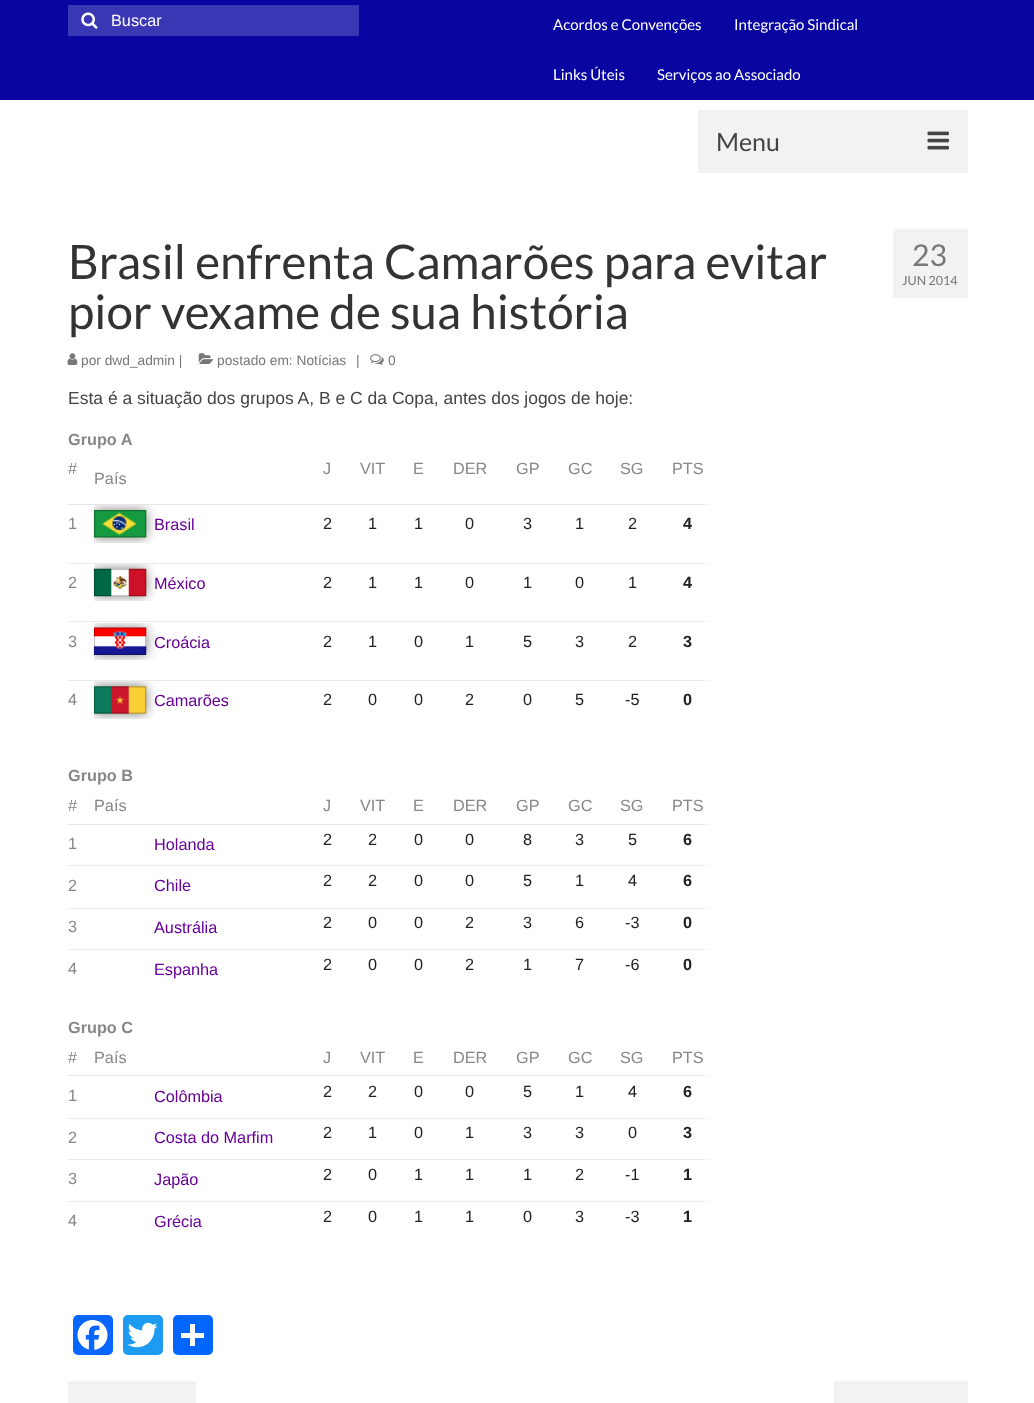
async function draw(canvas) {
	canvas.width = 1034;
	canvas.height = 1403;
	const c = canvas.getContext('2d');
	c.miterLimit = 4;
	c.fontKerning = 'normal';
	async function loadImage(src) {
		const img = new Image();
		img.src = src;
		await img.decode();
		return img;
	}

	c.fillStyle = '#fff';
	c.fillRect(0, 0, 1034, 1403);
	c.fillStyle = '#0805a1';
	c.fillRect(0, 0, 1034, 100);
	c.fillStyle = '#3937b4';
	c.fillRect(68, 5, 291, 31);
	c.drawImage(await loadImage('img1.png'), 81, 12, 17, 17);
	c.font = '16.25px Liberation Sans';
	c.fillStyle = '#fff';
	c.fillText('Buscar', 111, 26);
	c.font = '15px Lato';
	for (const [text, x, y] of [
		['Acordos e Convenções', 553, 30],
		['Integração Sindical', 734, 30],
		['Links Úteis', 553, 80],
		['Serviços ao Associado', 657, 80],
	]) {
		c.fillText(text, x, y);
	}
	c.fillStyle = '#f2f2f2';
	c.fillRect(698, 110, 270, 63);
	c.font = '25px Lato';
	c.fillStyle = '#444';
	c.fillText('Menu', 716, 151);
	c.drawImage(await loadImage('img2.png'), 927, 131, 22, 19);
	c.font = '47.5px Lato';
	c.fillStyle = '#333';
	c.fillText('Brasil enfrenta Camarões para evitar', 68, 279);
	c.fillText('pior vexame de sua história', 68, 329);
	c.drawImage(await loadImage('img3.png'), 67, 353, 11, 12);
	c.font = '13.75px Liberation Sans';
	c.fillStyle = '#777';
	c.fillText('por dwd_admin |', 81, 365);
	c.drawImage(await loadImage('img4.png'), 198, 353, 16, 11);
	c.fillText('postado em: Notícias', 217, 365);
	c.fillText('|', 356, 365);
	c.drawImage(await loadImage('img5.png'), 370, 354, 14, 11);
	c.fillText('0', 388, 365);
	c.fillStyle = '#f2f2f2';
	c.fillRect(893, 229, 75, 69);
	c.font = '30px Lato';
	c.fillStyle = '#777';
	c.fillText('23', 912, 266);
	c.font = '12.5px Lato';
	c.fillText('JUN 2014', 902, 285);
	c.font = '17.5px Liberation Sans';
	c.fillStyle = '#444';
	c.fillText('Esta é a situação dos grupos A, B e C da Copa, antes dos jogos de hoje:', 68, 404);
	c.font = 'bold 16.25px Liberation Sans';
	c.fillStyle = '#878787';
	c.fillText('Grupo A', 68, 445);
	c.font = '16.25px Liberation Sans';
	for (const [text, x, y] of [
		['#', 68, 474],
		['J', 323, 474],
		['VIT', 360, 474],
		['E', 413, 474],
		['DER', 453, 474],
		['GP', 516, 474],
		['GC', 568, 474],
		['SG', 620, 474],
		['PTS', 672, 474],
		['País', 94, 484],
	]) {
		c.fillText(text, x, y);
	}
	c.fillStyle = '#f7f7f7';
	c.fillRect(705, 504, 6, 1);
	c.fillStyle = '#e5e5e5';
	c.fillRect(68, 504, 637, 1);
	c.fillStyle = '#878787';
	c.fillText('1', 68, 529);
	c.save();
	c.beginPath();
	c.rect(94, 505, 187, 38);
	c.clip();
	c.fillStyle = '#00000080';
	c.filter = 'blur(6px)';
	c.beginPath();
	c.rect(94, 510, 52, 28);
	c.fill();
	c.filter = 'none';
	c.restore();
	c.drawImage(await loadImage('img6.png'), 93, 510, 54, 28);
	c.fillStyle = '#609';
	c.fillText('Brasil', 154, 530);
	c.fillStyle = '#212121';
	for (const [text, x, y] of [
		['2', 323, 529],
		['1', 368, 529],
		['1', 414, 529],
		['0', 465, 529],
		['3', 523, 529],
		['1', 575, 529],
		['2', 628, 529],
	]) {
		c.fillText(text, x, y);
	}
	c.font = 'bold 16.25px Liberation Sans';
	c.fillText('4', 683, 529);
	c.fillStyle = '#f7f7f7';
	c.fillRect(705, 563, 6, 1);
	c.fillStyle = '#ebebeb';
	c.fillRect(68, 563, 637, 1);
	c.font = '16.25px Liberation Sans';
	c.fillStyle = '#878787';
	c.fillText('2', 68, 588);
	c.save();
	c.beginPath();
	c.rect(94, 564, 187, 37);
	c.clip();
	c.fillStyle = '#00000080';
	c.filter = 'blur(6px)';
	c.beginPath();
	c.rect(94, 569, 52, 27);
	c.fill();
	c.filter = 'none';
	c.restore();
	c.drawImage(await loadImage('img7.png'), 93, 568, 54, 29);
	c.fillStyle = '#609';
	c.fillText('México', 154, 589);
	c.fillStyle = '#212121';
	for (const [text, x, y] of [
		['2', 323, 588],
		['1', 368, 588],
		['1', 414, 588],
		['0', 465, 588],
		['1', 523, 588],
		['0', 575, 588],
		['1', 628, 588],
	]) {
		c.fillText(text, x, y);
	}
	c.font = 'bold 16.25px Liberation Sans';
	c.fillText('4', 683, 588);
	c.fillStyle = '#f7f7f7';
	c.fillRect(705, 621, 6, 1);
	c.fillStyle = '#ebebeb';
	c.fillRect(68, 621, 637, 1);
	c.font = '16.25px Liberation Sans';
	c.fillStyle = '#878787';
	c.fillText('3', 68, 647);
	c.save();
	c.beginPath();
	c.rect(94, 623, 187, 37);
	c.clip();
	c.fillStyle = '#00000080';
	c.filter = 'blur(6px)';
	c.beginPath();
	c.rect(94, 628, 52, 27);
	c.fill();
	c.filter = 'none';
	c.restore();
	c.drawImage(await loadImage('img8.png'), 93, 627, 54, 28);
	c.fillStyle = '#609';
	c.fillText('Croácia', 154, 648);
	c.fillStyle = '#212121';
	for (const [text, x, y] of [
		['2', 323, 647],
		['1', 368, 647],
		['0', 414, 647],
		['1', 465, 647],
		['5', 523, 647],
		['3', 575, 647],
		['2', 628, 647],
	]) {
		c.fillText(text, x, y);
	}
	c.font = 'bold 16.25px Liberation Sans';
	c.fillText('3', 683, 647);
	c.fillStyle = '#f7f7f7';
	c.fillRect(705, 680, 6, 1);
	c.fillStyle = '#ebebeb';
	c.fillRect(68, 680, 637, 1);
	c.font = '16.25px Liberation Sans';
	c.fillStyle = '#878787';
	c.fillText('4', 68, 705);
	c.save();
	c.beginPath();
	c.rect(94, 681, 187, 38);
	c.clip();
	c.fillStyle = '#00000080';
	c.filter = 'blur(6px)';
	c.beginPath();
	c.rect(94, 686, 52, 28);
	c.fill();
	c.filter = 'none';
	c.restore();
	c.drawImage(await loadImage('img9.png'), 93, 686, 54, 28);
	c.fillStyle = '#609';
	c.fillText('Camarões', 154, 706);
	c.fillStyle = '#212121';
	for (const [text, x, y] of [
		['2', 323, 705],
		['0', 368, 705],
		['0', 414, 705],
		['2', 465, 705],
		['0', 523, 705],
		['5', 575, 705],
		['-5', 625, 705],
	]) {
		c.fillText(text, x, y);
	}
	c.font = 'bold 16.25px Liberation Sans';
	c.fillText('0', 683, 705);
	c.fillStyle = '#878787';
	c.fillText('Grupo B', 68, 781);
	c.font = '16.25px Liberation Sans';
	for (const [text, x, y] of [
		['#', 68, 811],
		['País', 94, 811],
		['J', 323, 811],
		['VIT', 360, 811],
		['E', 413, 811],
		['DER', 453, 811],
		['GP', 516, 811],
		['GC', 568, 811],
		['SG', 620, 811],
		['PTS', 672, 811],
	]) {
		c.fillText(text, x, y);
	}
	c.fillStyle = '#f7f7f7';
	c.fillRect(705, 824, 6, 1);
	c.fillStyle = '#e5e5e5';
	c.fillRect(68, 824, 637, 1);
	c.fillStyle = '#878787';
	c.fillText('1', 68, 849);
	c.fillStyle = '#609';
	c.fillText('Holanda', 154, 850);
	c.fillStyle = '#212121';
	for (const [text, x, y] of [
		['2', 323, 845],
		['2', 368, 845],
		['0', 414, 845],
		['0', 465, 845],
		['8', 523, 845],
		['3', 575, 845],
		['5', 628, 845],
	]) {
		c.fillText(text, x, y);
	}
	c.font = 'bold 16.25px Liberation Sans';
	c.fillText('6', 683, 845);
	c.fillStyle = '#f7f7f7';
	c.fillRect(705, 865, 6, 1);
	c.fillStyle = '#ebebeb';
	c.fillRect(68, 865, 637, 1);
	c.font = '16.25px Liberation Sans';
	c.fillStyle = '#878787';
	c.fillText('2', 68, 891);
	c.fillStyle = '#609';
	c.fillText('Chile', 154, 891);
	c.fillStyle = '#212121';
	for (const [text, x, y] of [
		['2', 323, 886],
		['2', 368, 886],
		['0', 414, 886],
		['0', 465, 886],
		['5', 523, 886],
		['1', 575, 886],
		['4', 628, 886],
	]) {
		c.fillText(text, x, y);
	}
	c.font = 'bold 16.25px Liberation Sans';
	c.fillText('6', 683, 886);
	c.fillStyle = '#f7f7f7';
	c.fillRect(705, 908, 6, 1);
	c.fillStyle = '#ebebeb';
	c.fillRect(68, 908, 637, 1);
	c.font = '16.25px Liberation Sans';
	c.fillStyle = '#878787';
	c.fillText('3', 68, 932);
	c.fillStyle = '#609';
	c.fillText('Austrália', 154, 933);
	c.fillStyle = '#212121';
	for (const [text, x, y] of [
		['2', 323, 928],
		['0', 368, 928],
		['0', 414, 928],
		['2', 465, 928],
		['3', 523, 928],
		['6', 575, 928],
		['-3', 625, 928],
	]) {
		c.fillText(text, x, y);
	}
	c.font = 'bold 16.25px Liberation Sans';
	c.fillText('0', 683, 928);
	c.fillStyle = '#f7f7f7';
	c.fillRect(705, 949, 6, 1);
	c.fillStyle = '#ebebeb';
	c.fillRect(68, 949, 637, 1);
	c.font = '16.25px Liberation Sans';
	c.fillStyle = '#878787';
	c.fillText('4', 68, 974);
	c.fillStyle = '#609';
	c.fillText('Espanha', 154, 975);
	c.fillStyle = '#212121';
	for (const [text, x, y] of [
		['2', 323, 970],
		['0', 368, 970],
		['0', 414, 970],
		['2', 465, 970],
		['1', 523, 970],
		['7', 575, 970],
		['-6', 625, 970],
	]) {
		c.fillText(text, x, y);
	}
	c.font = 'bold 16.25px Liberation Sans';
	c.fillText('0', 683, 970);
	c.fillStyle = '#878787';
	c.fillText('Grupo C', 68, 1033);
	c.font = '16.25px Liberation Sans';
	for (const [text, x, y] of [
		['#', 68, 1063],
		['País', 94, 1063],
		['J', 323, 1063],
		['VIT', 360, 1063],
		['E', 413, 1063],
		['DER', 453, 1063],
		['GP', 516, 1063],
		['GC', 568, 1063],
		['SG', 620, 1063],
		['PTS', 672, 1063],
	]) {
		c.fillText(text, x, y);
	}
	c.fillStyle = '#f7f7f7';
	c.fillRect(705, 1075, 6, 1);
	c.fillStyle = '#e5e5e5';
	c.fillRect(68, 1075, 637, 1);
	c.fillStyle = '#878787';
	c.fillText('1', 68, 1101);
	c.fillStyle = '#609';
	c.fillText('Colômbia', 154, 1102);
	c.fillStyle = '#212121';
	for (const [text, x, y] of [
		['2', 323, 1097],
		['2', 368, 1097],
		['0', 414, 1097],
		['0', 465, 1097],
		['5', 523, 1097],
		['1', 575, 1097],
		['4', 628, 1097],
	]) {
		c.fillText(text, x, y);
	}
	c.font = 'bold 16.25px Liberation Sans';
	c.fillText('6', 683, 1097);
	c.fillStyle = '#f7f7f7';
	c.fillRect(705, 1118, 6, 1);
	c.fillStyle = '#ebebeb';
	c.fillRect(68, 1118, 637, 1);
	c.font = '16.25px Liberation Sans';
	c.fillStyle = '#878787';
	c.fillText('2', 68, 1143);
	c.fillStyle = '#609';
	c.fillText('Costa do Marfim', 154, 1143);
	c.fillStyle = '#212121';
	for (const [text, x, y] of [
		['2', 323, 1138],
		['1', 368, 1138],
		['0', 414, 1138],
		['1', 465, 1138],
		['3', 523, 1138],
		['3', 575, 1138],
		['0', 628, 1138],
	]) {
		c.fillText(text, x, y);
	}
	c.font = 'bold 16.25px Liberation Sans';
	c.fillText('3', 683, 1138);
	c.fillStyle = '#f7f7f7';
	c.fillRect(705, 1159, 6, 1);
	c.fillStyle = '#ebebeb';
	c.fillRect(68, 1159, 637, 1);
	c.font = '16.25px Liberation Sans';
	c.fillStyle = '#878787';
	c.fillText('3', 68, 1184);
	c.fillStyle = '#609';
	c.fillText('Japão', 154, 1185);
	c.fillStyle = '#212121';
	for (const [text, x, y] of [
		['2', 323, 1180],
		['0', 368, 1180],
		['1', 414, 1180],
		['1', 465, 1180],
		['1', 523, 1180],
		['2', 575, 1180],
		['-1', 625, 1180],
	]) {
		c.fillText(text, x, y);
	}
	c.font = 'bold 16.25px Liberation Sans';
	c.fillText('1', 683, 1180);
	c.fillStyle = '#f7f7f7';
	c.fillRect(705, 1201, 6, 1);
	c.fillStyle = '#ebebeb';
	c.fillRect(68, 1201, 637, 1);
	c.font = '16.25px Liberation Sans';
	c.fillStyle = '#878787';
	c.fillText('4', 68, 1226);
	c.fillStyle = '#609';
	c.fillText('Grécia', 154, 1227);
	c.fillStyle = '#212121';
	for (const [text, x, y] of [
		['2', 323, 1222],
		['0', 368, 1222],
		['1', 414, 1222],
		['1', 465, 1222],
		['0', 523, 1222],
		['3', 575, 1222],
		['-3', 625, 1222],
	]) {
		c.fillText(text, x, y);
	}
	c.font = 'bold 16.25px Liberation Sans';
	c.fillText('1', 683, 1222);
	c.fillStyle = '#0866ff';
	c.beginPath();
	c.roundRect(73, 1315, 40, 40, 5);
	c.fill();
	c.drawImage(await loadImage('img10.png'), 77, 1320, 31, 30);
	c.fillStyle = '#1d9bf0';
	c.beginPath();
	c.roundRect(123, 1315, 40, 40, 5);
	c.fill();
	c.drawImage(await loadImage('img11.png'), 127, 1322, 31, 26);
	c.fillStyle = '#0166ff';
	c.beginPath();
	c.roundRect(173, 1315, 40, 40, 5);
	c.fill();
	for (const [x, y, w, h, color] of [
		[190, 1324, 5, 22, '#fff'],
		[181, 1333, 23, 5, '#fff'],
		[68, 1381, 128, 22, '#f2f2f2'],
		[834, 1381, 134, 22, '#f2f2f2'],
	]) {
		c.fillStyle = color;
		c.fillRect(x, y, w, h);
	}
}

draw(document.querySelector('canvas'));
